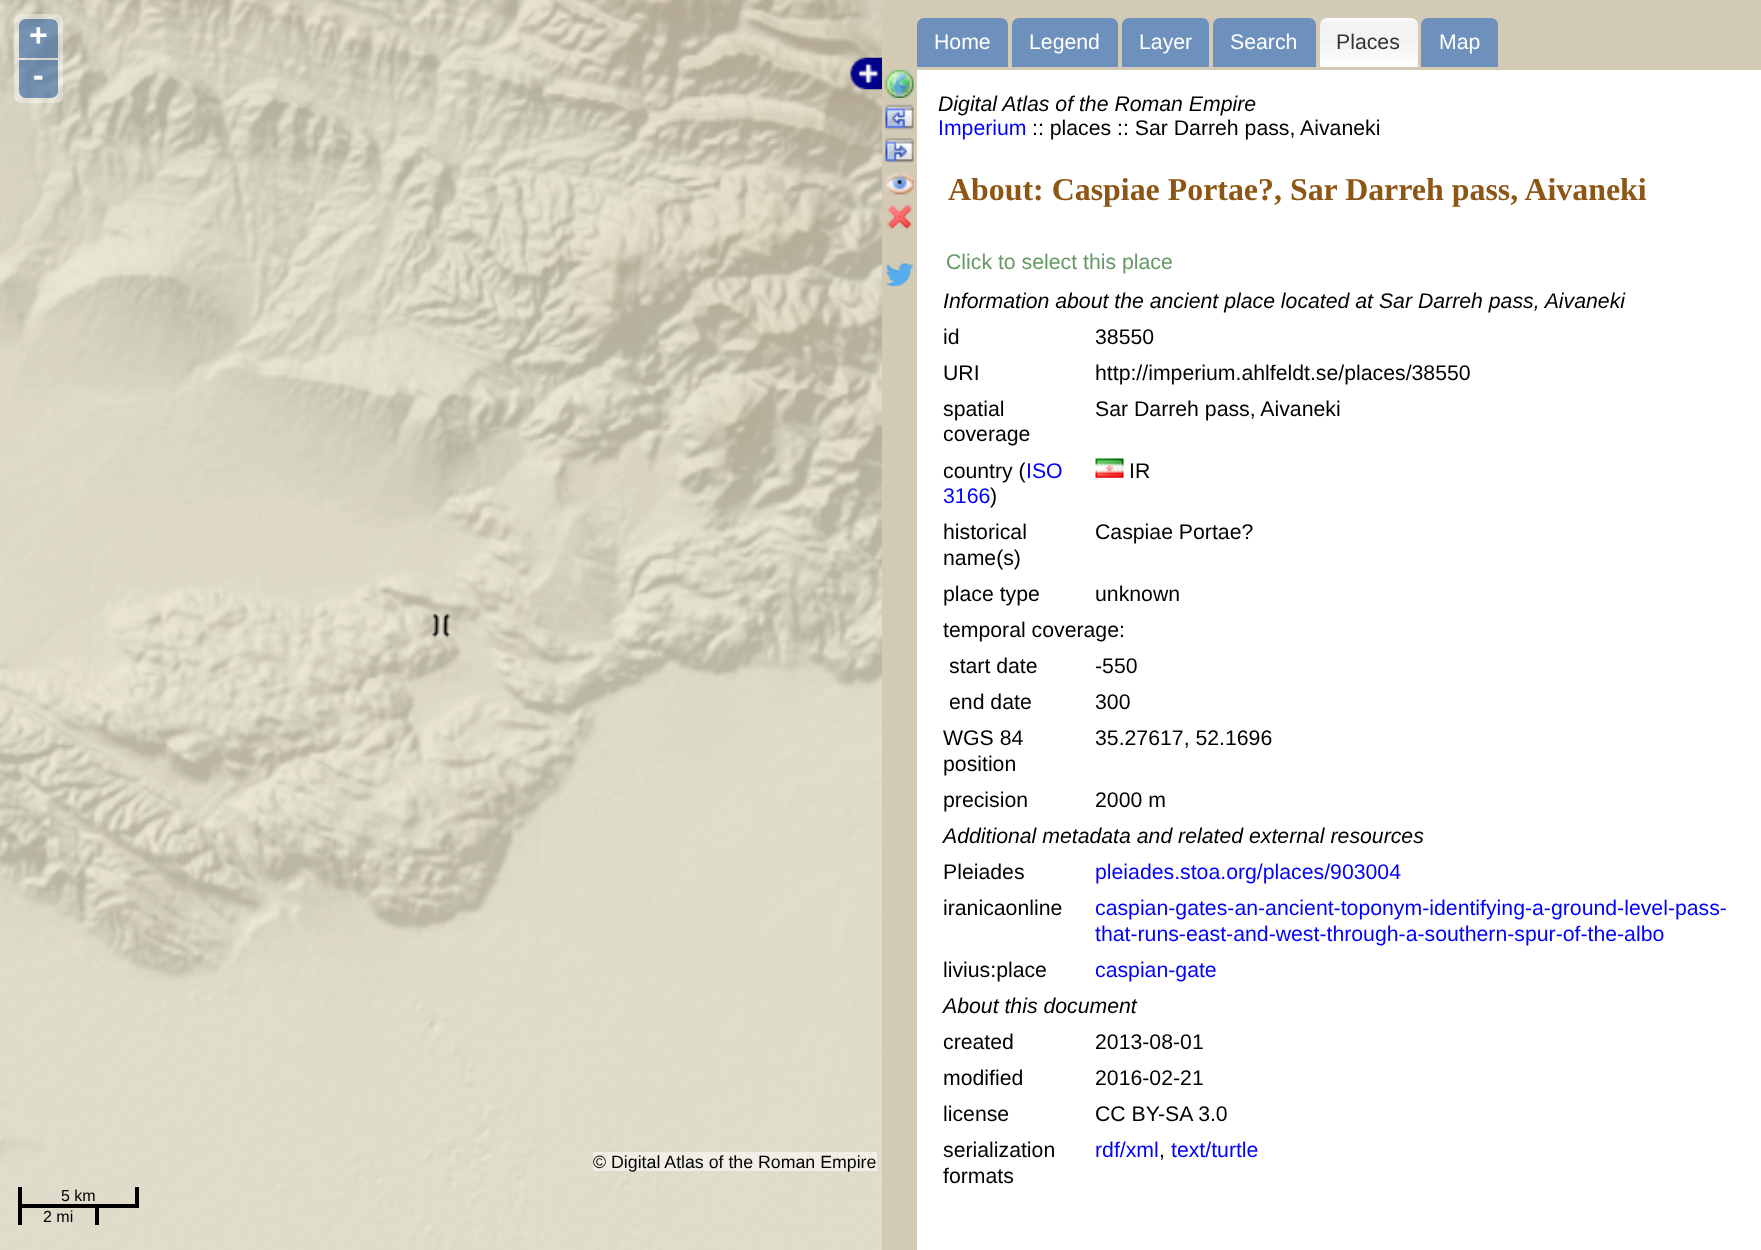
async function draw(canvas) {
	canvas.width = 1761;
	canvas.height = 1250;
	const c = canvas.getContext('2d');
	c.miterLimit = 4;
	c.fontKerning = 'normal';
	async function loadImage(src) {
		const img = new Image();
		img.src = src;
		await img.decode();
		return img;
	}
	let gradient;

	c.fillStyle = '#d2cab5';
	c.fillRect(0, 0, 1761, 1250);
	c.drawImage(await loadImage('img1.png'), 0, 0, 89, 49);
	c.drawImage(await loadImage('img2.png'), 89, 0, 449, 49);
	c.drawImage(await loadImage('img3.png'), 537, 0, 345, 49);
	c.drawImage(await loadImage('img4.png'), 0, 49, 89, 448);
	c.drawImage(await loadImage('img5.png'), 89, 49, 449, 448);
	c.drawImage(await loadImage('img6.png'), 537, 49, 345, 448);
	c.drawImage(await loadImage('img7.png'), 89, 497, 449, 448);
	c.drawImage(await loadImage('img8.png'), 537, 497, 345, 448);
	c.drawImage(await loadImage('img9.png'), 89, 945, 449, 305);
	c.drawImage(await loadImage('img10.png'), 537, 945, 345, 305);
	c.drawImage(await loadImage('img11.png'), 89, 73, 1, 211);
	c.drawImage(await loadImage('img12.png'), 537, 179, 1, 252);
	c.drawImage(await loadImage('img13.png'), 0, 497, 89, 448);
	c.drawImage(await loadImage('img14.png'), 89, 663, 1, 262);
	c.drawImage(await loadImage('img15.png'), 537, 578, 1, 163);
	c.drawImage(await loadImage('img16.png'), 0, 945, 89, 305);
	c.drawImage(await loadImage('img17.png'), 89, 996, 1, 254);
	c.fillStyle = '#ffffff66';
	c.beginPath();
	c.roundRect(14, 14, 49, 89, 7);
	c.fill();
	c.fillStyle = '#003c8880';
	c.beginPath();
	c.roundRect(19, 19, 39, 39, [7, 7, 0, 0]);
	c.fill();
	c.font = 'bold 32px Liberation Sans';
	c.fillStyle = '#fff';
	c.fillText('+', 29, 46);
	c.fillStyle = '#003c8880';
	c.beginPath();
	c.roundRect(19, 60, 39, 38, [0, 0, 7, 7]);
	c.fill();
	c.fillStyle = '#fff';
	c.fillText('-', 33, 86);
	c.drawImage(await loadImage('img18.png'), 850, 57, 32, 33);
	c.fillStyle = '#ffffff80';
	c.fillRect(593, 1152, 284, 19);
	c.font = '17.75px Liberation Sans';
	c.fillStyle = '#000';
	c.fillText('© Digital Atlas of the Roman Empire', 593, 1168);
	for (const [x, y, w, h, color] of [
		[135, 1187, 4, 21, '#000'],
		[18, 1204, 120, 4, '#000'],
		[18, 1187, 4, 38, '#000'],
	]) {
		c.fillStyle = color;
		c.fillRect(x, y, w, h);
	}
	c.font = '16px Liberation Sans';
	c.fillText('5 km', 61, 1201);
	c.fillRect(95, 1204, 4, 21);
	c.fillText('2 mi', 43, 1222);
	c.drawImage(await loadImage('img19.png'), 885, 70, 29, 28);
	c.drawImage(await loadImage('img20.png'), 885, 104, 29, 26);
	c.drawImage(await loadImage('img21.png'), 885, 138, 29, 25);
	c.drawImage(await loadImage('img22.png'), 885, 173, 29, 22);
	c.drawImage(await loadImage('img23.png'), 887, 203, 26, 27);
	c.drawImage(await loadImage('img24.png'), 885, 263, 29, 24);
	c.fillStyle = '#6d91bc';
	c.beginPath();
	c.roundRect(917, 18, 91, 49, [7, 7, 0, 0]);
	c.fill();
	c.font = '21.25px Liberation Sans';
	c.fillStyle = '#fff';
	c.fillText('Home', 934, 49);
	c.fillStyle = '#6d91bc';
	c.beginPath();
	c.roundRect(1012, 18, 106, 49, [7, 7, 0, 0]);
	c.fill();
	c.fillStyle = '#fff';
	c.fillText('Legend', 1029, 49);
	c.fillStyle = '#6d91bc';
	c.beginPath();
	c.roundRect(1122, 18, 87, 49, [7, 7, 0, 0]);
	c.fill();
	c.fillStyle = '#fff';
	c.fillText('Layer', 1139, 49);
	c.fillStyle = '#6d91bc';
	c.beginPath();
	c.roundRect(1213, 18, 103, 49, [7, 7, 0, 0]);
	c.fill();
	c.fillStyle = '#fff';
	c.fillText('Search', 1230, 49);
	gradient = c.createLinearGradient(1320, 18, 1320, 67);
	gradient.addColorStop(0, '#fff');
	gradient.addColorStop(0.1, '#f3f3f3');
	gradient.addColorStop(0.5, '#f3f3f3');
	gradient.addColorStop(1, '#fff');
	c.fillStyle = gradient;
	c.beginPath();
	c.roundRect(1320, 18, 98, 49, [7, 7, 0, 0]);
	c.fill();
	c.fillStyle = '#333';
	c.fillText('Places', 1336, 49);
	c.fillStyle = '#6d91bc';
	c.beginPath();
	c.roundRect(1421, 18, 77, 49, [7, 7, 0, 0]);
	c.fill();
	c.fillStyle = '#fff';
	c.fillText('Map', 1439, 49);
	c.fillRect(917, 70, 844, 1180);
	c.font = 'italic 21.25px Liberation Sans';
	c.fillStyle = '#000';
	c.fillText('Digital Atlas of the Roman Empire', 938, 111);
	c.font = '21.25px Liberation Sans';
	c.fillStyle = '#00f';
	c.fillText('Imperium', 938, 135);
	c.fillStyle = '#000';
	c.fillText(':: places :: Sar Darreh pass, Aivaneki', 1032, 135);
	c.font = 'bold 31.9px Liberation Serif';
	c.fillStyle = '#8e5614';
	c.fillText('About: Caspiae Portae?, Sar Darreh pass, Aivaneki', 948, 200);
	c.font = '21.25px Liberation Sans';
	c.fillStyle = '#696';
	c.fillText('Click to select this place', 946, 269);
	c.font = 'italic 21.25px Liberation Sans';
	c.fillStyle = '#000';
	c.fillText('Information about the ancient place located at Sar Darreh pass, Aivaneki', 943, 308);
	c.font = '21.25px Liberation Sans';
	for (const [text, x, y] of [
		['id', 943, 344],
		['38550', 1095, 344],
		['URI', 943, 380],
		['http://imperium.ahlfeldt.se/places/38550', 1095, 380],
		['spatial', 943, 416],
		['coverage', 943, 441],
		['Sar Darreh pass, Aivaneki', 1095, 416],
		['country (', 943, 478],
	]) {
		c.fillText(text, x, y);
	}
	c.fillStyle = '#00f';
	c.fillText('ISO', 1026, 478);
	c.fillText('3166', 943, 503);
	c.fillStyle = '#000';
	c.fillText(')', 990, 503);
	c.drawImage(await loadImage('img25.png'), 1095, 458, 29, 20);
	for (const [text, x, y] of [
		['IR', 1129, 478],
		['historical', 943, 539],
		['name(s)', 943, 565],
		['Caspiae Portae?', 1095, 539],
		['place type', 943, 601],
		['unknown', 1095, 601],
		['temporal coverage:', 943, 637],
		['start date', 949, 673],
		['-550', 1095, 673],
		['end date', 949, 709],
		['300', 1095, 709],
		['WGS 84', 943, 745],
		['position', 943, 771],
		['35.27617, 52.1696', 1095, 745],
		['precision', 943, 807],
		['2000 m', 1095, 807],
	]) {
		c.fillText(text, x, y);
	}
	c.font = 'italic 21.25px Liberation Sans';
	c.fillText('Additional metadata and related external resources', 943, 843);
	c.font = '21.25px Liberation Sans';
	c.fillText('Pleiades', 943, 879);
	c.fillStyle = '#00f';
	c.fillText('pleiades.stoa.org/places/903004', 1095, 879);
	c.fillStyle = '#000';
	c.fillText('iranicaonline', 943, 915);
	c.fillStyle = '#00f';
	c.fillText('caspian-gates-an-ancient-toponym-identifying-a-ground-level-pass-', 1095, 915);
	c.fillText('that-runs-east-and-west-through-a-southern-spur-of-the-albo', 1095, 941);
	c.fillStyle = '#000';
	c.fillText('livius:place', 943, 977);
	c.fillStyle = '#00f';
	c.fillText('caspian-gate', 1095, 977);
	c.font = 'italic 21.25px Liberation Sans';
	c.fillStyle = '#000';
	c.fillText('About this document', 943, 1013);
	c.font = '21.25px Liberation Sans';
	for (const [text, x, y] of [
		['created', 943, 1049],
		['2013-08-01', 1095, 1049],
		['modified', 943, 1085],
		['2016-02-21', 1095, 1085],
		['license', 943, 1121],
		['CC BY-SA 3.0', 1095, 1121],
		['serialization', 943, 1157],
		['formats', 943, 1183],
	]) {
		c.fillText(text, x, y);
	}
	c.fillStyle = '#00f';
	c.fillText('rdf/xml', 1095, 1157);
	c.fillStyle = '#000';
	c.fillText(',', 1159, 1157);
	c.fillStyle = '#00f';
	c.fillText('text/turtle', 1171, 1157);
}

draw(document.querySelector('canvas'));
